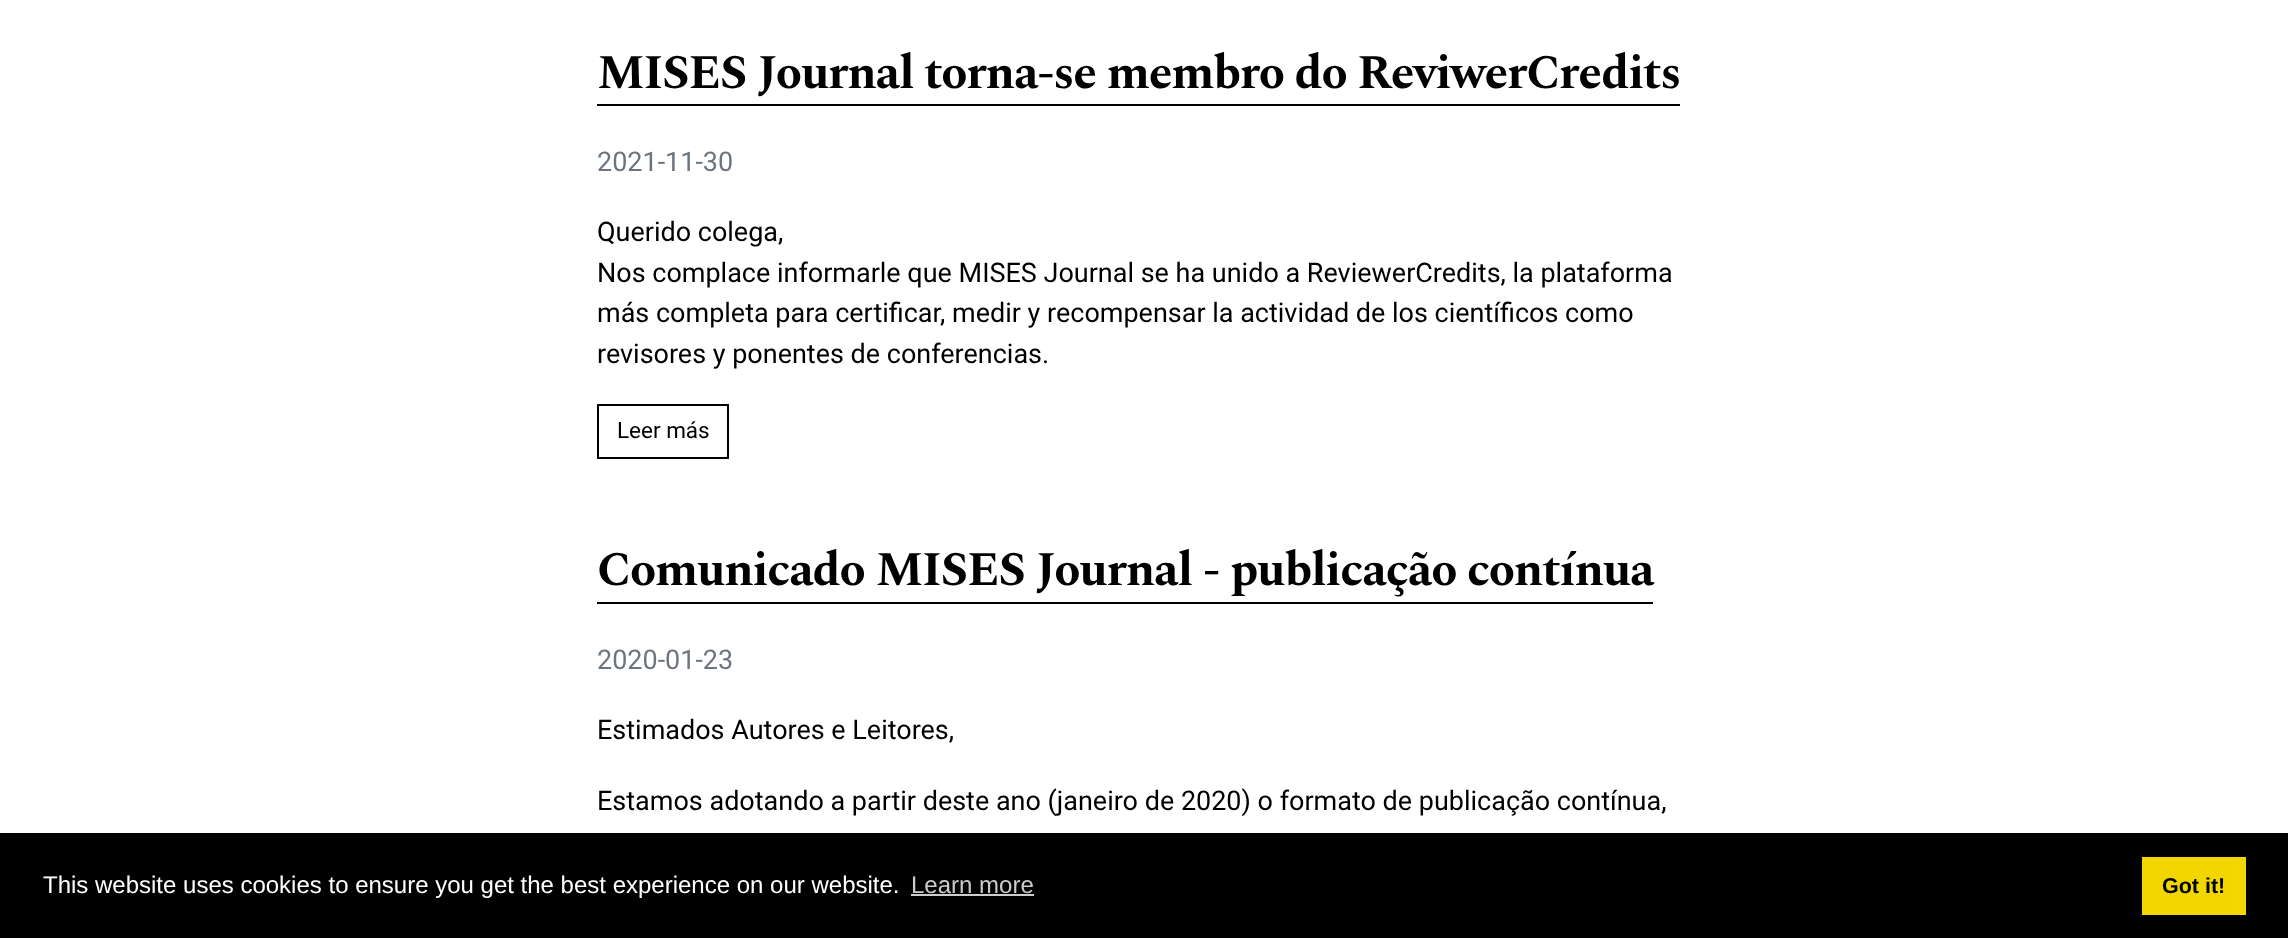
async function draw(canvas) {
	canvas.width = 2288;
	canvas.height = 938;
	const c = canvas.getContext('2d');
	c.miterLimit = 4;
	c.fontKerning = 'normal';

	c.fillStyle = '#fff';
	c.fillRect(0, 0, 2288, 938);
	c.letterSpacing = '-1.2px';
	c.font = 'bold 48px Spectral';
	c.fillStyle = '#000';
	c.fillText('MISES Journal torna-se membro do ReviwerCredits', 597, 88);
	c.fillRect(597, 104, 1083, 2);
	c.letterSpacing = '0px';
	c.font = '27px Roboto';
	c.fillStyle = '#6c757d';
	c.fillText('2021-11-30', 597, 171);
	c.fillStyle = '#000';
	for (const [text, x, y] of [
		['Querido colega,', 597, 241],
		['Nos complace informarle que MISES Journal se ha unido a ReviewerCredits, la plataforma', 597, 282],
		['más completa para certificar, medir y recompensar la actividad de los científicos como', 597, 322],
		['revisores y ponentes de conferencias.', 597, 363],
	]) {
		c.fillText(text, x, y);
	}
	c.strokeStyle = '#000';
	c.lineWidth = 2;
	c.strokeRect(598, 405, 130, 53);
	c.font = '22.5px Roboto';
	c.fillText('Leer más', 617, 438);
	c.letterSpacing = '-1.2px';
	c.font = 'bold 48px Spectral';
	c.fillText('Comunicado MISES Journal - publicação contínua', 597, 585);
	c.fillRect(597, 602, 1056, 2);
	c.letterSpacing = '0px';
	c.font = '27px Roboto';
	c.fillStyle = '#6c757d';
	c.fillText('2020-01-23', 597, 669);
	c.fillStyle = '#000';
	c.fillText('Estimados Autores e Leitores,', 597, 739);
	c.fillText('Estamos adotando a partir deste ano (janeiro de 2020) o formato de publicação contínua,', 597, 810);
	c.fillRect(0, 833, 2288, 105);
	c.font = '24px Liberation Sans';
	c.fillStyle = '#fff';
	c.fillText('This website uses cookies to ensure you get the best experience on our website.', 43, 893);
	c.fillStyle = '#ccc';
	c.fillText('Learn more', 911, 893);
	c.fillRect(911, 894, 123, 2);
	c.fillStyle = '#f1d600';
	c.fillRect(2142, 857, 104, 58);
	c.font = 'bold 21.5px Liberation Sans';
	c.fillStyle = '#000';
	c.fillText('Got it!', 2162, 893);
}

draw(document.querySelector('canvas'));
